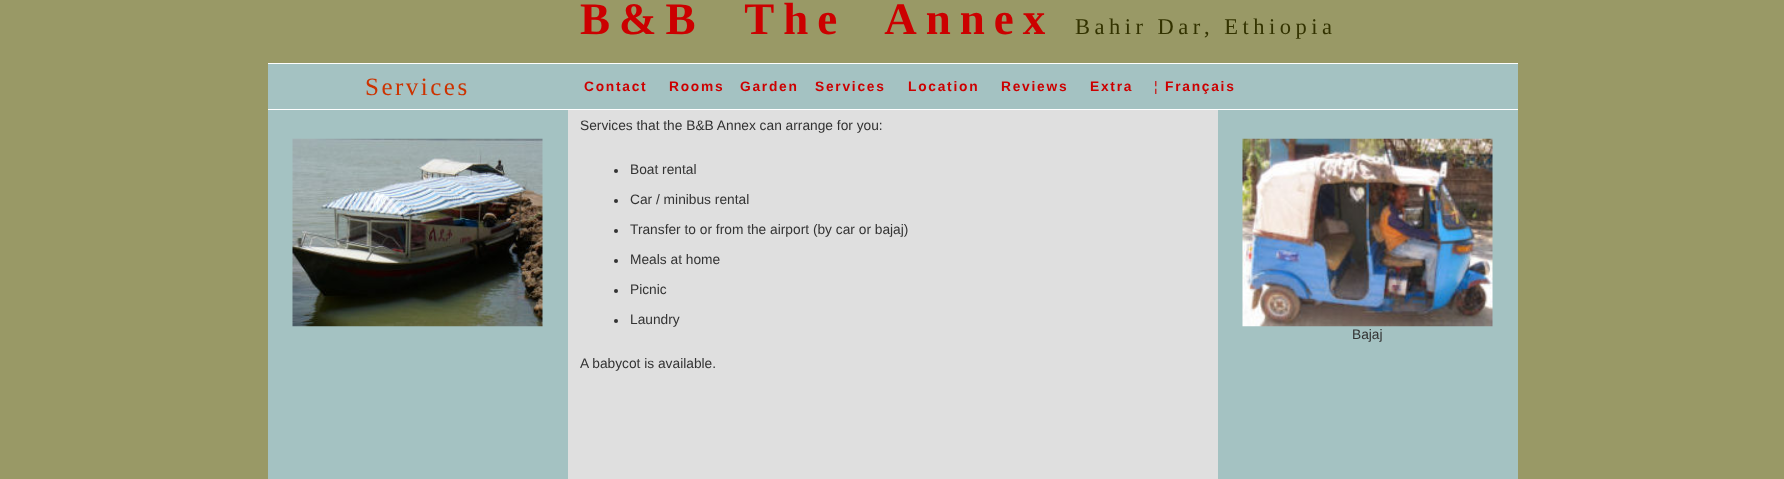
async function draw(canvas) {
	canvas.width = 1784;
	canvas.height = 479;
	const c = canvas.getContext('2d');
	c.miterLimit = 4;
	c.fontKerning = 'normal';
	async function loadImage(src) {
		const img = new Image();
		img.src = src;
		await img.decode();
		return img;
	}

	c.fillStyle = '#996';
	c.fillRect(0, 0, 1784, 479);
	c.letterSpacing = '9px';
	c.font = 'bold 45px Liberation Serif';
	c.fillStyle = '#c00';
	c.fillText('B&B  The  Annex', 580, 34);
	c.letterSpacing = '4.5px';
	c.font = '22.5px Liberation Serif';
	c.fillStyle = '#330';
	c.fillText('Bahir Dar, Ethiopia', 1075, 34);
	c.fillStyle = '#fff';
	c.fillRect(268, 63, 1250, 1);
	c.fillStyle = '#a4c2c2';
	c.fillRect(268, 64, 1250, 45);
	c.letterSpacing = '2.5px';
	c.font = '25px Liberation Serif';
	c.fillStyle = '#c30';
	c.fillText('Services', 365, 95);
	c.letterSpacing = '1.75px';
	c.font = 'bold 13.75px Liberation Sans';
	c.fillStyle = '#c00';
	for (const [text, x, y] of [
		['Contact', 584, 91],
		['Rooms', 669, 91],
		['Garden', 740, 91],
		['Services', 815, 91],
		['Location', 908, 91],
		['Reviews', 1001, 91],
		['Extra', 1090, 91],
	]) {
		c.fillText(text, x, y);
	}
	c.font = '13.75px Liberation Sans';
	c.fillText('¦', 1154, 91);
	c.font = 'bold 13.75px Liberation Sans';
	c.fillText('Français', 1165, 91);
	c.fillStyle = '#fff';
	c.fillRect(268, 109, 1250, 1);
	c.fillStyle = '#a4c2c2';
	c.fillRect(268, 110, 300, 369);
	c.drawImage(await loadImage('img1.png'), 292, 138, 251, 189);
	c.fillStyle = '#dfdfdf';
	c.fillRect(568, 110, 650, 369);
	c.letterSpacing = '0px';
	c.font = '13.75px Liberation Sans';
	c.fillStyle = '#333';
	c.fillText('Services that the B&B Annex can arrange for you:', 580, 130);
	c.beginPath();
	c.arc(616, 171, 2, 0, 2 * Math.PI);
	c.fill();
	c.fillText('Boat rental', 630, 174);
	c.beginPath();
	c.arc(616, 201, 2, 0, 2 * Math.PI);
	c.fill();
	c.fillText('Car / minibus rental', 630, 204);
	c.beginPath();
	c.arc(616, 231, 2, 0, 2 * Math.PI);
	c.fill();
	c.fillText('Transfer to or from the airport (by car or bajaj)', 630, 234);
	c.beginPath();
	c.arc(616, 261, 2, 0, 2 * Math.PI);
	c.fill();
	c.fillText('Meals at home', 630, 264);
	c.beginPath();
	c.arc(616, 291, 2, 0, 2 * Math.PI);
	c.fill();
	c.fillText('Picnic', 630, 294);
	c.beginPath();
	c.arc(616, 321, 2, 0, 2 * Math.PI);
	c.fill();
	c.fillText('Laundry', 630, 324);
	c.fillText('A babycot is available.', 580, 368);
	c.fillStyle = '#a4c2c2';
	c.fillRect(1218, 110, 300, 369);
	c.drawImage(await loadImage('img2.png'), 1242, 138, 251, 189);
	c.fillStyle = '#333';
	c.fillText('Bajaj', 1352, 339);
}

draw(document.querySelector('canvas'));
